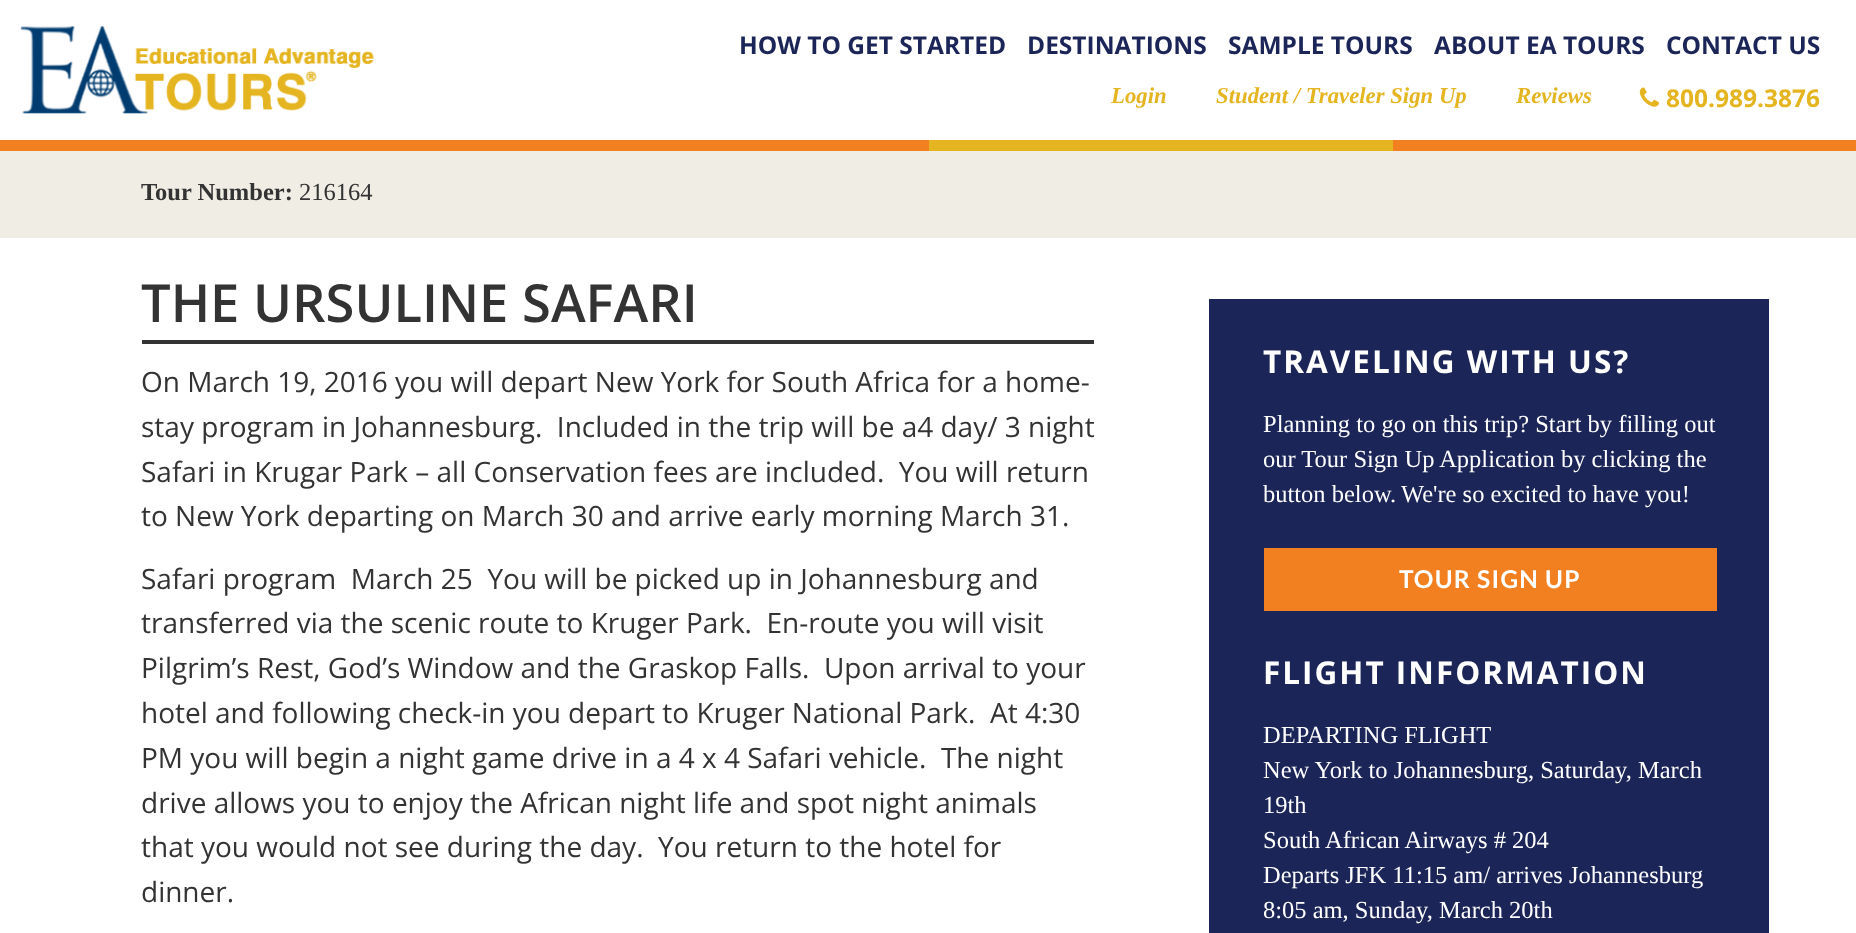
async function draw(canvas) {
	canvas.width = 1856;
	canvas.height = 933;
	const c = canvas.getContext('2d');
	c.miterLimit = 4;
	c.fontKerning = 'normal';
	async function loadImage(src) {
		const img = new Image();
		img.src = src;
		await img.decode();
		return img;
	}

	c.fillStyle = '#fff';
	c.fillRect(0, 0, 1856, 933);
	c.drawImage(await loadImage('img1.png'), 20, 26, 354, 88);
	c.font = 'bold 24.5px Open Sans';
	c.fillStyle = '#1c2557';
	for (const [text, x, y] of [
		['HOW TO GET STARTED', 739, 54],
		['DESTINATIONS', 1027, 54],
		['SAMPLE TOURS', 1228, 54],
		['ABOUT EA TOURS', 1434, 54],
		['CONTACT US', 1666, 54],
	]) {
		c.fillText(text, x, y);
	}
	c.font = 'italic bold 22.75px Liberation Serif';
	c.fillStyle = '#e5b521';
	for (const [text, x, y] of [
		['Login', 1111, 103],
		['Student / Traveler Sign Up', 1216, 103],
		['Reviews', 1516, 103],
	]) {
		c.fillText(text, x, y);
	}
	c.drawImage(await loadImage('img2.png'), 1639, 87, 20, 20);
	c.font = 'bold 24.5px Open Sans';
	c.fillText('800.989.3876', 1666, 107);
	for (const [x, y, w, h, color] of [
		[0, 140, 929, 11, '#f28021'],
		[929, 140, 464, 11, '#e5b521'],
		[1393, 140, 463, 11, '#f28021'],
		[0, 151, 1856, 87, '#efede4'],
	]) {
		c.fillStyle = color;
		c.fillRect(x, y, w, h);
	}
	c.font = 'bold 24.5px Liberation Serif';
	c.fillStyle = '#333';
	c.fillText('Tour Number:', 141, 200);
	c.font = '24.5px Liberation Serif';
	c.fillText('216164', 299, 200);
	c.fillRect(142, 340, 952, 4);
	c.font = '600 52.5px Open Sans';
	c.fillText('THE URSULINE SAFARI', 141, 322);
	c.font = '28px Open Sans';
	for (const [text, x, y] of [
		['On March 19, 2016 you will depart New York for South Africa for a home-', 141, 392],
		['stay program in Johannesburg.  Included in the trip will be a4 day/ 3 night', 141, 437],
		['Safari in Krugar Park – all Conservation fees are included.  You will return', 141, 482],
		['to New York departing on March 30 and arrive early morning March 31.', 141, 526],
		['Safari program  March 25  You will be picked up in Johannesburg and', 141, 589],
		['transferred via the scenic route to Kruger Park.  En-route you will visit', 141, 633],
		['Pilgrim’s Rest, God’s Window and the Graskop Falls.  Upon arrival to your', 141, 678],
		['hotel and following check-in you depart to Kruger National Park.  At 4:30', 141, 723],
		['PM you will begin a night game drive in a 4 x 4 Safari vehicle.  The night', 141, 768],
		['drive allows you to enjoy the African night life and spot night animals', 141, 813],
		['that you would not see during the day.  You return to the hotel for', 141, 857],
		['dinner.', 141, 902],
	]) {
		c.fillText(text, x, y);
	}
	c.fillStyle = '#1c2557';
	c.fillRect(1209, 299, 560, 634);
	c.letterSpacing = '2px';
	c.font = 'bold 31.5px Open Sans';
	c.fillStyle = '#fff';
	c.fillText('TRAVELING WITH US?', 1263, 373);
	c.letterSpacing = '0px';
	c.font = '24.5px Liberation Serif';
	for (const [text, x, y] of [
		['Planning to go on this trip? Start by filling out', 1263, 432],
		['our Tour Sign Up Application by clicking the', 1263, 467],
		['button below.', 1263, 502],
		['We\'re so excited to have you!', 1401, 502],
	]) {
		c.fillText(text, x, y);
	}
	c.fillStyle = '#f28021';
	c.fillRect(1264, 548, 453, 63);
	c.letterSpacing = '1.25px';
	c.font = 'bold 24.5px Lato';
	c.fillStyle = '#fff';
	c.fillText('TOUR SIGN UP', 1399, 588);
	c.letterSpacing = '2px';
	c.font = 'bold 31.5px Open Sans';
	c.fillText('FLIGHT INFORMATION', 1263, 684);
	c.letterSpacing = '0px';
	c.font = '24.5px Liberation Serif';
	for (const [text, x, y] of [
		['DEPARTING FLIGHT', 1263, 743],
		['New York to Johannesburg, Saturday, March', 1263, 778],
		['19th', 1263, 813],
		['South African Airways # 204', 1263, 848],
		['Departs JFK 11:15 am/ arrives Johannesburg', 1263, 883],
		['8:05 am, Sunday, March 20th', 1263, 918],
	]) {
		c.fillText(text, x, y);
	}
}

draw(document.querySelector('canvas'));
